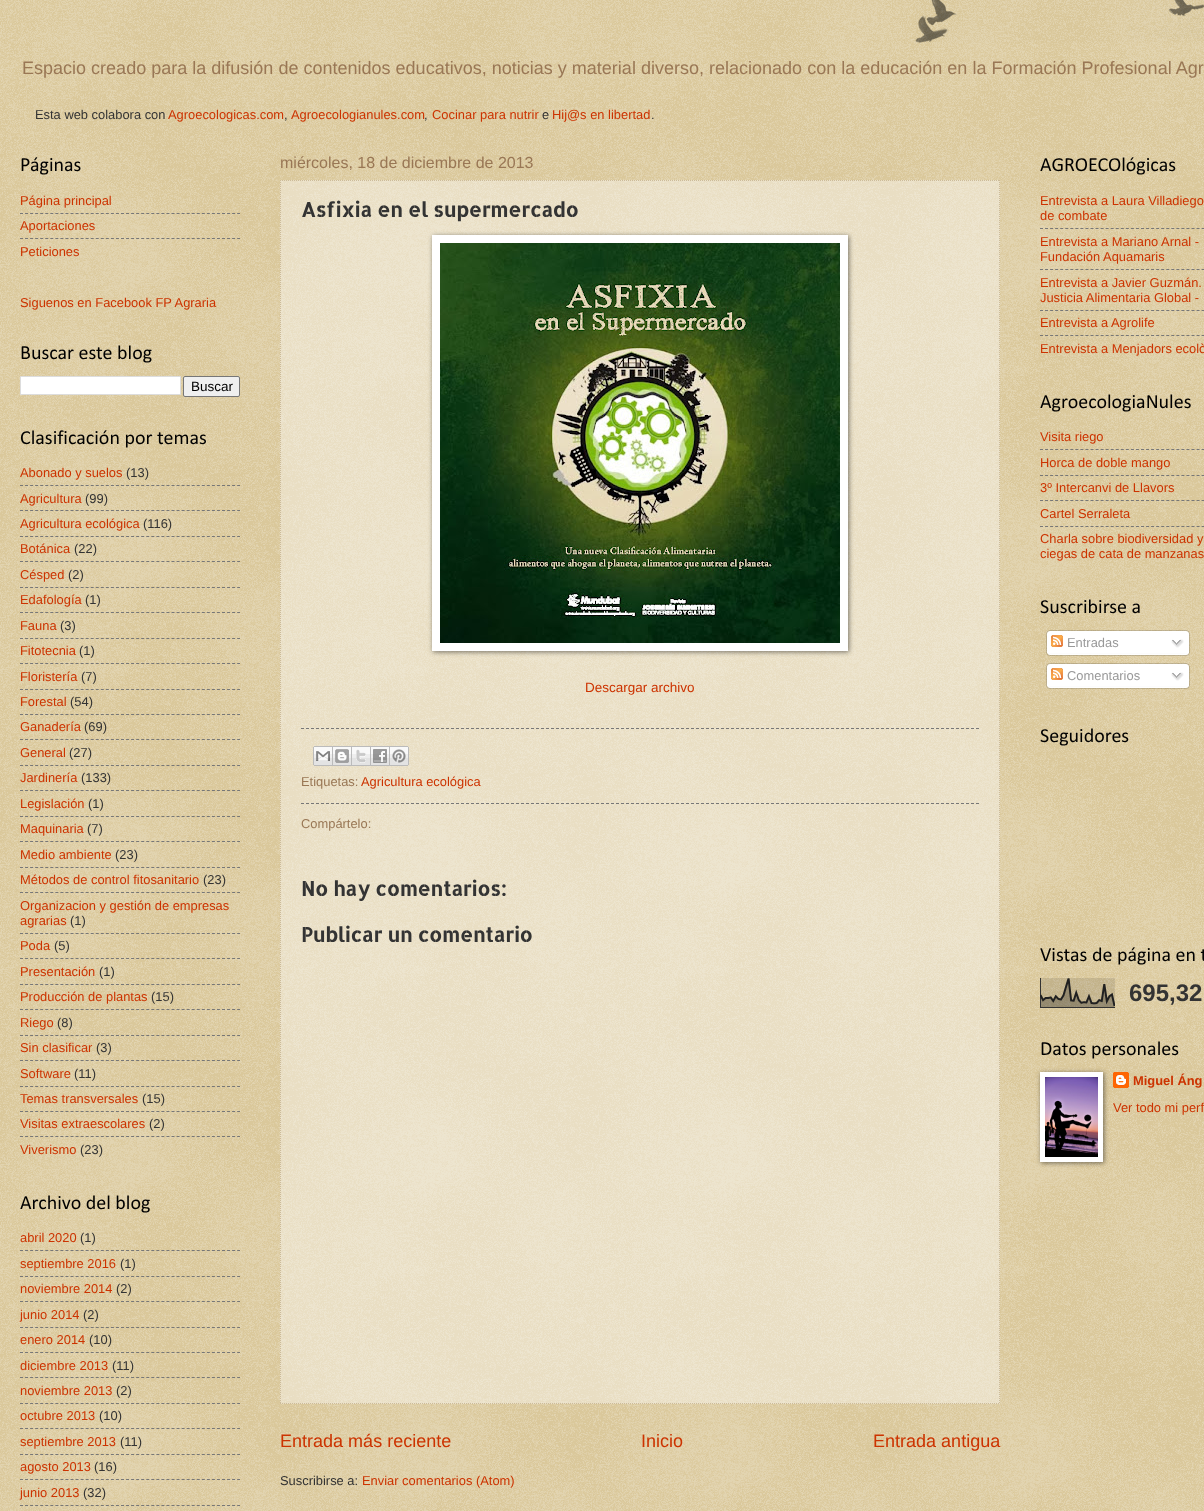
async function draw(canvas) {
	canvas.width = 1204;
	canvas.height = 1511;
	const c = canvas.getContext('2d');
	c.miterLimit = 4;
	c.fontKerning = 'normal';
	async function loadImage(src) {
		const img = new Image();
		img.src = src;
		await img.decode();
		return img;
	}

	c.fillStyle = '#c0a154';
	c.fillRect(0, 0, 1204, 1511);
	c.drawImage(await loadImage('img1.png'), 0, 0, 1204, 1511);
	c.drawImage(await loadImage('img2.png'), 915, 0, 289, 43);
	c.font = '18.03px Liberation Sans';
	c.fillStyle = '#975';
	c.fillText('Espacio creado para la difusión de contenidos educativos, noticias y material diverso, relacionado con la educación en la Formación Profesional Agr', 22, 74);
	c.font = '12.9px Liberation Sans';
	c.fillStyle = '#333';
	c.fillText('Esta web colabora con', 35, 119);
	c.fillStyle = '#c30';
	c.fillText('Agroecologicas.com', 168, 119);
	c.fillStyle = '#333';
	c.fillText(',', 284, 119);
	c.fillStyle = '#c30';
	c.fillText('Agroecologianules.com', 291, 119);
	c.fillStyle = '#333';
	c.fillText(',', 424, 119);
	c.fillStyle = '#c30';
	c.fillText('Cocinar para nutrir', 432, 119);
	c.fillStyle = '#333';
	c.fillText('e', 542, 119);
	c.fillStyle = '#c30';
	c.fillText('Hij@s en libertad', 552, 119);
	c.fillStyle = '#333';
	c.fillText('.', 651, 119);
	c.font = '20px Calibri';
	c.fillStyle = '#000';
	c.fillText('Páginas', 20, 171);
	c.font = '12.9px Liberation Sans';
	c.fillStyle = '#c30';
	c.fillText('Página principal', 20, 205);
	c.beginPath();
	c.moveTo(20, 213.5);
	c.lineTo(240, 213.5);
	c.strokeStyle = '#777';
	c.setLineDash([3, 2.05]);
	c.stroke();
	c.fillText('Aportaciones', 20, 230);
	c.beginPath();
	c.moveTo(20, 238.5);
	c.lineTo(240, 238.5);
	c.stroke();
	c.fillText('Peticiones', 20, 256);
	c.fillText('Siguenos en Facebook FP Agraria', 20, 307);
	c.font = '20px Calibri';
	c.fillStyle = '#000';
	c.fillText('Buscar este blog', 20, 359);
	c.fillStyle = '#fff';
	c.beginPath();
	c.rect(20.5, 376.5, 160, 18);
	c.fill();
	c.strokeStyle = '#ddd';
	c.setLineDash([]);
	c.stroke();
	c.fillStyle = '#efefef';
	c.beginPath();
	c.roundRect(183.5, 376.5, 56, 20, 1.5);
	c.fill();
	c.strokeStyle = '#767676';
	c.stroke();
	c.font = '13.5px Liberation Sans';
	c.fillStyle = '#000';
	c.fillText('Buscar', 191, 391);
	c.font = '20px Calibri';
	c.fillText('Clasificación por temas', 20, 444);
	c.font = '12.9px Liberation Sans';
	c.fillStyle = '#c30';
	c.fillText('Abonado y suelos', 20, 477);
	c.fillStyle = '#333';
	c.fillText('(13)', 126, 477);
	c.beginPath();
	c.moveTo(20, 485.5);
	c.lineTo(240, 485.5);
	c.strokeStyle = '#777';
	c.setLineDash([3, 2.05]);
	c.stroke();
	c.fillStyle = '#c30';
	c.fillText('Agricultura', 20, 503);
	c.fillStyle = '#333';
	c.fillText('(99)', 85, 503);
	c.beginPath();
	c.moveTo(20, 510.5);
	c.lineTo(240, 510.5);
	c.stroke();
	c.fillStyle = '#c30';
	c.fillText('Agricultura ecológica', 20, 528);
	c.fillStyle = '#333';
	c.fillText('(116)', 143, 528);
	c.beginPath();
	c.moveTo(20, 536.5);
	c.lineTo(240, 536.5);
	c.stroke();
	c.fillStyle = '#c30';
	c.fillText('Botánica', 20, 553);
	c.fillStyle = '#333';
	c.fillText('(22)', 74, 553);
	c.beginPath();
	c.moveTo(20, 561.5);
	c.lineTo(240, 561.5);
	c.stroke();
	c.fillStyle = '#c30';
	c.fillText('Césped', 20, 579);
	c.fillStyle = '#333';
	c.fillText('(2)', 68, 579);
	c.beginPath();
	c.moveTo(20, 587.5);
	c.lineTo(240, 587.5);
	c.stroke();
	c.fillStyle = '#c30';
	c.fillText('Edafología', 20, 604);
	c.fillStyle = '#333';
	c.fillText('(1)', 85, 604);
	c.beginPath();
	c.moveTo(20, 612.5);
	c.lineTo(240, 612.5);
	c.stroke();
	c.fillStyle = '#c30';
	c.fillText('Fauna', 20, 630);
	c.fillStyle = '#333';
	c.fillText('(3)', 60, 630);
	c.beginPath();
	c.moveTo(20, 638.5);
	c.lineTo(240, 638.5);
	c.stroke();
	c.fillStyle = '#c30';
	c.fillText('Fitotecnia', 20, 655);
	c.fillStyle = '#333';
	c.fillText('(1)', 79, 655);
	c.beginPath();
	c.moveTo(20, 663.5);
	c.lineTo(240, 663.5);
	c.stroke();
	c.fillStyle = '#c30';
	c.fillText('Floristería', 20, 681);
	c.fillStyle = '#333';
	c.fillText('(7)', 81, 681);
	c.beginPath();
	c.moveTo(20, 689.5);
	c.lineTo(240, 689.5);
	c.stroke();
	c.fillStyle = '#c30';
	c.fillText('Forestal', 20, 706);
	c.fillStyle = '#333';
	c.fillText('(54)', 70, 706);
	c.beginPath();
	c.moveTo(20, 714.5);
	c.lineTo(240, 714.5);
	c.stroke();
	c.fillStyle = '#c30';
	c.fillText('Ganadería', 20, 731);
	c.fillStyle = '#333';
	c.fillText('(69)', 84, 731);
	c.beginPath();
	c.moveTo(20, 739.5);
	c.lineTo(240, 739.5);
	c.stroke();
	c.fillStyle = '#c30';
	c.fillText('General', 20, 757);
	c.fillStyle = '#333';
	c.fillText('(27)', 69, 757);
	c.beginPath();
	c.moveTo(20, 765.5);
	c.lineTo(240, 765.5);
	c.stroke();
	c.fillStyle = '#c30';
	c.fillText('Jardinería', 20, 782);
	c.fillStyle = '#333';
	c.fillText('(133)', 81, 782);
	c.beginPath();
	c.moveTo(20, 790.5);
	c.lineTo(240, 790.5);
	c.stroke();
	c.fillStyle = '#c30';
	c.fillText('Legislación', 20, 808);
	c.fillStyle = '#333';
	c.fillText('(1)', 88, 808);
	c.beginPath();
	c.moveTo(20, 816.5);
	c.lineTo(240, 816.5);
	c.stroke();
	c.fillStyle = '#c30';
	c.fillText('Maquinaria', 20, 833);
	c.fillStyle = '#333';
	c.fillText('(7)', 87, 833);
	c.beginPath();
	c.moveTo(20, 841.5);
	c.lineTo(240, 841.5);
	c.stroke();
	c.fillStyle = '#c30';
	c.fillText('Medio ambiente', 20, 859);
	c.fillStyle = '#333';
	c.fillText('(23)', 115, 859);
	c.beginPath();
	c.moveTo(20, 867.5);
	c.lineTo(240, 867.5);
	c.stroke();
	c.fillStyle = '#c30';
	c.fillText('Métodos de control fitosanitario', 20, 884);
	c.fillStyle = '#333';
	c.fillText('(23)', 203, 884);
	c.beginPath();
	c.moveTo(20, 892.5);
	c.lineTo(240, 892.5);
	c.stroke();
	c.fillStyle = '#c30';
	c.fillText('Organizacion y gestión de empresas', 20, 910);
	c.fillText('agrarias', 20, 925);
	c.fillStyle = '#333';
	c.fillText('(1)', 70, 925);
	c.beginPath();
	c.moveTo(20, 933.5);
	c.lineTo(240, 933.5);
	c.stroke();
	c.fillStyle = '#c30';
	c.fillText('Poda', 20, 950);
	c.fillStyle = '#333';
	c.fillText('(5)', 54, 950);
	c.beginPath();
	c.moveTo(20, 958.5);
	c.lineTo(240, 958.5);
	c.stroke();
	c.fillStyle = '#c30';
	c.fillText('Presentación', 20, 976);
	c.fillStyle = '#333';
	c.fillText('(1)', 99, 976);
	c.beginPath();
	c.moveTo(20, 984.5);
	c.lineTo(240, 984.5);
	c.stroke();
	c.fillStyle = '#c30';
	c.fillText('Producción de plantas', 20, 1001);
	c.fillStyle = '#333';
	c.fillText('(15)', 151, 1001);
	c.beginPath();
	c.moveTo(20, 1009.5);
	c.lineTo(240, 1009.5);
	c.stroke();
	c.fillStyle = '#c30';
	c.fillText('Riego', 20, 1027);
	c.fillStyle = '#333';
	c.fillText('(8)', 57, 1027);
	c.beginPath();
	c.moveTo(20, 1035.5);
	c.lineTo(240, 1035.5);
	c.stroke();
	c.fillStyle = '#c30';
	c.fillText('Sin clasificar', 20, 1052);
	c.fillStyle = '#333';
	c.fillText('(3)', 96, 1052);
	c.beginPath();
	c.moveTo(20, 1060.5);
	c.lineTo(240, 1060.5);
	c.stroke();
	c.fillStyle = '#c30';
	c.fillText('Software', 20, 1078);
	c.fillStyle = '#333';
	c.fillText('(11)', 74, 1078);
	c.beginPath();
	c.moveTo(20, 1086.5);
	c.lineTo(240, 1086.5);
	c.stroke();
	c.fillStyle = '#c30';
	c.fillText('Temas transversales', 20, 1103);
	c.fillStyle = '#333';
	c.fillText('(15)', 142, 1103);
	c.beginPath();
	c.moveTo(20, 1111.5);
	c.lineTo(240, 1111.5);
	c.stroke();
	c.fillStyle = '#c30';
	c.fillText('Visitas extraescolares', 20, 1128);
	c.fillStyle = '#333';
	c.fillText('(2)', 149, 1128);
	c.beginPath();
	c.moveTo(20, 1136.5);
	c.lineTo(240, 1136.5);
	c.stroke();
	c.fillStyle = '#c30';
	c.fillText('Viverismo', 20, 1154);
	c.fillStyle = '#333';
	c.fillText('(23)', 80, 1154);
	c.font = '20px Calibri';
	c.fillStyle = '#000';
	c.fillText('Archivo del blog', 20, 1209);
	c.font = '12.9px Liberation Sans';
	c.fillStyle = '#c30';
	c.fillText('abril 2020', 20, 1242);
	c.fillStyle = '#333';
	c.fillText('(1)', 80, 1242);
	c.beginPath();
	c.moveTo(20, 1250.5);
	c.lineTo(240, 1250.5);
	c.stroke();
	c.fillStyle = '#c30';
	c.fillText('septiembre 2016', 20, 1268);
	c.fillStyle = '#333';
	c.fillText('(1)', 120, 1268);
	c.beginPath();
	c.moveTo(20, 1276.5);
	c.lineTo(240, 1276.5);
	c.stroke();
	c.fillStyle = '#c30';
	c.fillText('noviembre 2014', 20, 1293);
	c.fillStyle = '#333';
	c.fillText('(2)', 116, 1293);
	c.beginPath();
	c.moveTo(20, 1301.5);
	c.lineTo(240, 1301.5);
	c.stroke();
	c.fillStyle = '#c30';
	c.fillText('junio 2014', 20, 1319);
	c.fillStyle = '#333';
	c.fillText('(2)', 83, 1319);
	c.beginPath();
	c.moveTo(20, 1327.5);
	c.lineTo(240, 1327.5);
	c.stroke();
	c.fillStyle = '#c30';
	c.fillText('enero 2014', 20, 1344);
	c.fillStyle = '#333';
	c.fillText('(10)', 89, 1344);
	c.beginPath();
	c.moveTo(20, 1352.5);
	c.lineTo(240, 1352.5);
	c.stroke();
	c.fillStyle = '#c30';
	c.fillText('diciembre 2013', 20, 1370);
	c.fillStyle = '#333';
	c.fillText('(11)', 112, 1370);
	c.beginPath();
	c.moveTo(20, 1377.5);
	c.lineTo(240, 1377.5);
	c.stroke();
	c.fillStyle = '#c30';
	c.fillText('noviembre 2013', 20, 1395);
	c.fillStyle = '#333';
	c.fillText('(2)', 116, 1395);
	c.beginPath();
	c.moveTo(20, 1403.5);
	c.lineTo(240, 1403.5);
	c.stroke();
	c.fillStyle = '#c30';
	c.fillText('octubre 2013', 20, 1420);
	c.fillStyle = '#333';
	c.fillText('(10)', 99, 1420);
	c.beginPath();
	c.moveTo(20, 1428.5);
	c.lineTo(240, 1428.5);
	c.stroke();
	c.fillStyle = '#c30';
	c.fillText('septiembre 2013', 20, 1446);
	c.fillStyle = '#333';
	c.fillText('(11)', 120, 1446);
	c.beginPath();
	c.moveTo(20, 1454.5);
	c.lineTo(240, 1454.5);
	c.stroke();
	c.fillStyle = '#c30';
	c.fillText('agosto 2013', 20, 1471);
	c.fillStyle = '#333';
	c.fillText('(16)', 94, 1471);
	c.beginPath();
	c.moveTo(20, 1479.5);
	c.lineTo(240, 1479.5);
	c.stroke();
	c.fillStyle = '#c30';
	c.fillText('junio 2013', 20, 1497);
	c.fillStyle = '#333';
	c.fillText('(32)', 83, 1497);
	c.beginPath();
	c.moveTo(20, 1505.5);
	c.lineTo(240, 1505.5);
	c.stroke();
	c.font = '16px Liberation Sans';
	c.fillStyle = '#975';
	c.fillText('miércoles, 18 de diciembre de 2013', 280, 168);
	c.fillStyle = '#ffffff66';
	c.fillRect(280, 180, 720, 1224);
	c.beginPath();
	c.moveTo(280, 180.5);
	c.lineTo(1000, 180.5);
	c.strokeStyle = '#cb9';
	c.setLineDash([1, 1]);
	c.stroke();
	c.beginPath();
	c.moveTo(999.5, 180);
	c.lineTo(999.5, 1404);
	c.stroke();
	c.beginPath();
	c.moveTo(280, 1403.5);
	c.lineTo(1000, 1403.5);
	c.stroke();
	c.beginPath();
	c.moveTo(280.5, 180);
	c.lineTo(280.5, 1404);
	c.stroke();
	c.font = 'bold 20px Allerta Stencil';
	c.fillStyle = '#333';
	c.fillText('Asfixia en el supermercado', 301, 217);
	c.fillStyle = '#00000080';
	c.filter = 'blur(2.5px)';
	c.beginPath();
	c.rect(433, 236, 416, 416);
	c.fill();
	c.filter = 'none';
	c.fillStyle = '#fff';
	c.fillRect(432, 235, 416, 416);
	c.drawImage(await loadImage('img3.png'), 440, 243, 400, 400);
	c.font = '13.5px Liberation Sans';
	c.fillStyle = '#c30';
	c.fillText('Descargar archivo', 585, 692);
	c.beginPath();
	c.moveTo(301, 728.5);
	c.lineTo(979, 728.5);
	c.strokeStyle = '#777';
	c.setLineDash([3, 2]);
	c.stroke();
	c.drawImage(await loadImage('img4.png'), 313, 746, 20, 20);
	c.drawImage(await loadImage('img5.png'), 333, 746, 19, 20);
	c.drawImage(await loadImage('img6.png'), 352, 746, 19, 20);
	c.drawImage(await loadImage('img7.png'), 371, 746, 19, 20);
	c.drawImage(await loadImage('img8.png'), 390, 746, 19, 20);
	c.font = '12.9px Liberation Sans';
	c.fillStyle = '#975';
	c.fillText('Etiquetas:', 301, 786);
	c.fillStyle = '#c30';
	c.fillText('Agricultura ecológica', 361, 786);
	c.beginPath();
	c.moveTo(301, 803.5);
	c.lineTo(979, 803.5);
	c.stroke();
	c.fillStyle = '#975';
	c.fillText('Compártelo:', 301, 828);
	c.font = 'bold 20px Allerta Stencil';
	c.fillStyle = '#333';
	c.fillText('No hay comentarios:', 301, 896);
	c.fillText('Publicar un comentario', 301, 942);
	c.font = '18.03px Liberation Sans';
	c.fillStyle = '#c30';
	for (const [text, x, y] of [
		['Entrada más reciente', 280, 1447],
		['Inicio', 641, 1447],
		['Entrada antigua', 873, 1447],
	]) {
		c.fillText(text, x, y);
	}
	c.font = '12.9px Liberation Sans';
	c.fillStyle = '#333';
	c.fillText('Suscribirse a:', 280, 1485);
	c.fillStyle = '#c30';
	c.fillText('Enviar comentarios (Atom)', 362, 1485);
	c.font = '20px Calibri';
	c.fillStyle = '#000';
	c.fillText('AGROECOlógicas', 1040, 171);
	c.font = '12.9px Liberation Sans';
	c.fillStyle = '#c30';
	c.fillText('Entrevista a Laura Villadiego', 1040, 205);
	c.fillText('de combate', 1040, 220);
	c.beginPath();
	c.moveTo(1040, 228.5);
	c.lineTo(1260, 228.5);
	c.setLineDash([3, 2.05]);
	c.stroke();
	c.fillText('Entrevista a Mariano Arnal -', 1040, 246);
	c.fillText('Fundación Aquamaris', 1040, 261);
	c.beginPath();
	c.moveTo(1040, 269.5);
	c.lineTo(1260, 269.5);
	c.stroke();
	c.fillText('Entrevista a Javier Guzmán.', 1040, 287);
	c.fillText('Justicia Alimentaria Global -', 1040, 302);
	c.beginPath();
	c.moveTo(1040, 310.5);
	c.lineTo(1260, 310.5);
	c.stroke();
	c.fillText('Entrevista a Agrolife', 1040, 327);
	c.beginPath();
	c.moveTo(1040, 335.5);
	c.lineTo(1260, 335.5);
	c.stroke();
	c.fillText('Entrevista a Menjadors ecolò', 1040, 353);
	c.font = '20px Calibri';
	c.fillStyle = '#000';
	c.fillText('AgroecologiaNules', 1040, 408);
	c.font = '12.9px Liberation Sans';
	c.fillStyle = '#c30';
	c.fillText('Visita riego', 1040, 441);
	c.beginPath();
	c.moveTo(1040, 449.5);
	c.lineTo(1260, 449.5);
	c.stroke();
	c.fillText('Horca de doble mango', 1040, 467);
	c.beginPath();
	c.moveTo(1040, 475.5);
	c.lineTo(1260, 475.5);
	c.stroke();
	c.fillText('3º Intercanvi de Llavors', 1040, 492);
	c.beginPath();
	c.moveTo(1040, 500.5);
	c.lineTo(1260, 500.5);
	c.stroke();
	c.fillText('Cartel Serraleta', 1040, 518);
	c.beginPath();
	c.moveTo(1040, 526.5);
	c.lineTo(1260, 526.5);
	c.stroke();
	c.fillText('Charla sobre biodiversidad y', 1040, 543);
	c.fillText('ciegas de cata de manzanas', 1040, 558);
	c.font = '20px Calibri';
	c.fillStyle = '#000';
	c.fillText('Suscribirse a', 1040, 613);
	c.drawImage(await loadImage('img9.png'), 1046, 630, 144, 23);
	c.drawImage(await loadImage('img10.png'), 1051, 635, 12, 12);
	c.font = '12.9px Liberation Sans';
	c.fillStyle = '#999';
	c.fillText('Entradas', 1067, 647);
	c.drawImage(await loadImage('img11.png'), 1171, 639, 13, 9);
	c.drawImage(await loadImage('img12.png'), 1046, 653, 144, 3);
	c.drawImage(await loadImage('img13.png'), 1046, 663, 144, 23);
	c.drawImage(await loadImage('img10.png'), 1051, 668, 12, 12);
	c.fillText('Comentarios', 1067, 680);
	c.drawImage(await loadImage('img11.png'), 1171, 672, 13, 9);
	c.drawImage(await loadImage('img14.png'), 1046, 686, 144, 3);
	c.font = '20px Calibri';
	c.fillStyle = '#000';
	c.fillText('Seguidores', 1040, 742);
	c.fillText('Vistas de página en t', 1040, 961);
	c.drawImage(await loadImage('img15.png'), 1040, 978, 75, 30);
	c.font = 'bold 24px Liberation Sans';
	c.fillStyle = '#333';
	c.fillText('695,32', 1129, 1001);
	c.font = '20px Calibri';
	c.fillStyle = '#000';
	c.fillText('Datos personales', 1040, 1055);
	c.fillStyle = '#00000080';
	c.filter = 'blur(2.5px)';
	c.beginPath();
	c.rect(1041, 1073, 63, 90);
	c.fill();
	c.filter = 'none';
	c.fillStyle = '#fff';
	c.fillRect(1040, 1072, 63, 90);
	c.drawImage(await loadImage('img16.png'), 1045, 1077, 53, 80);
	c.drawImage(await loadImage('img17.png'), 1113, 1072, 16, 16);
	c.font = 'bold 12.9px Liberation Sans';
	c.fillStyle = '#c30';
	c.fillText('Miguel Áng', 1133, 1085);
	c.font = '12.9px Liberation Sans';
	c.fillText('Ver todo mi perf', 1113, 1112);
}

draw(document.querySelector('canvas'));
